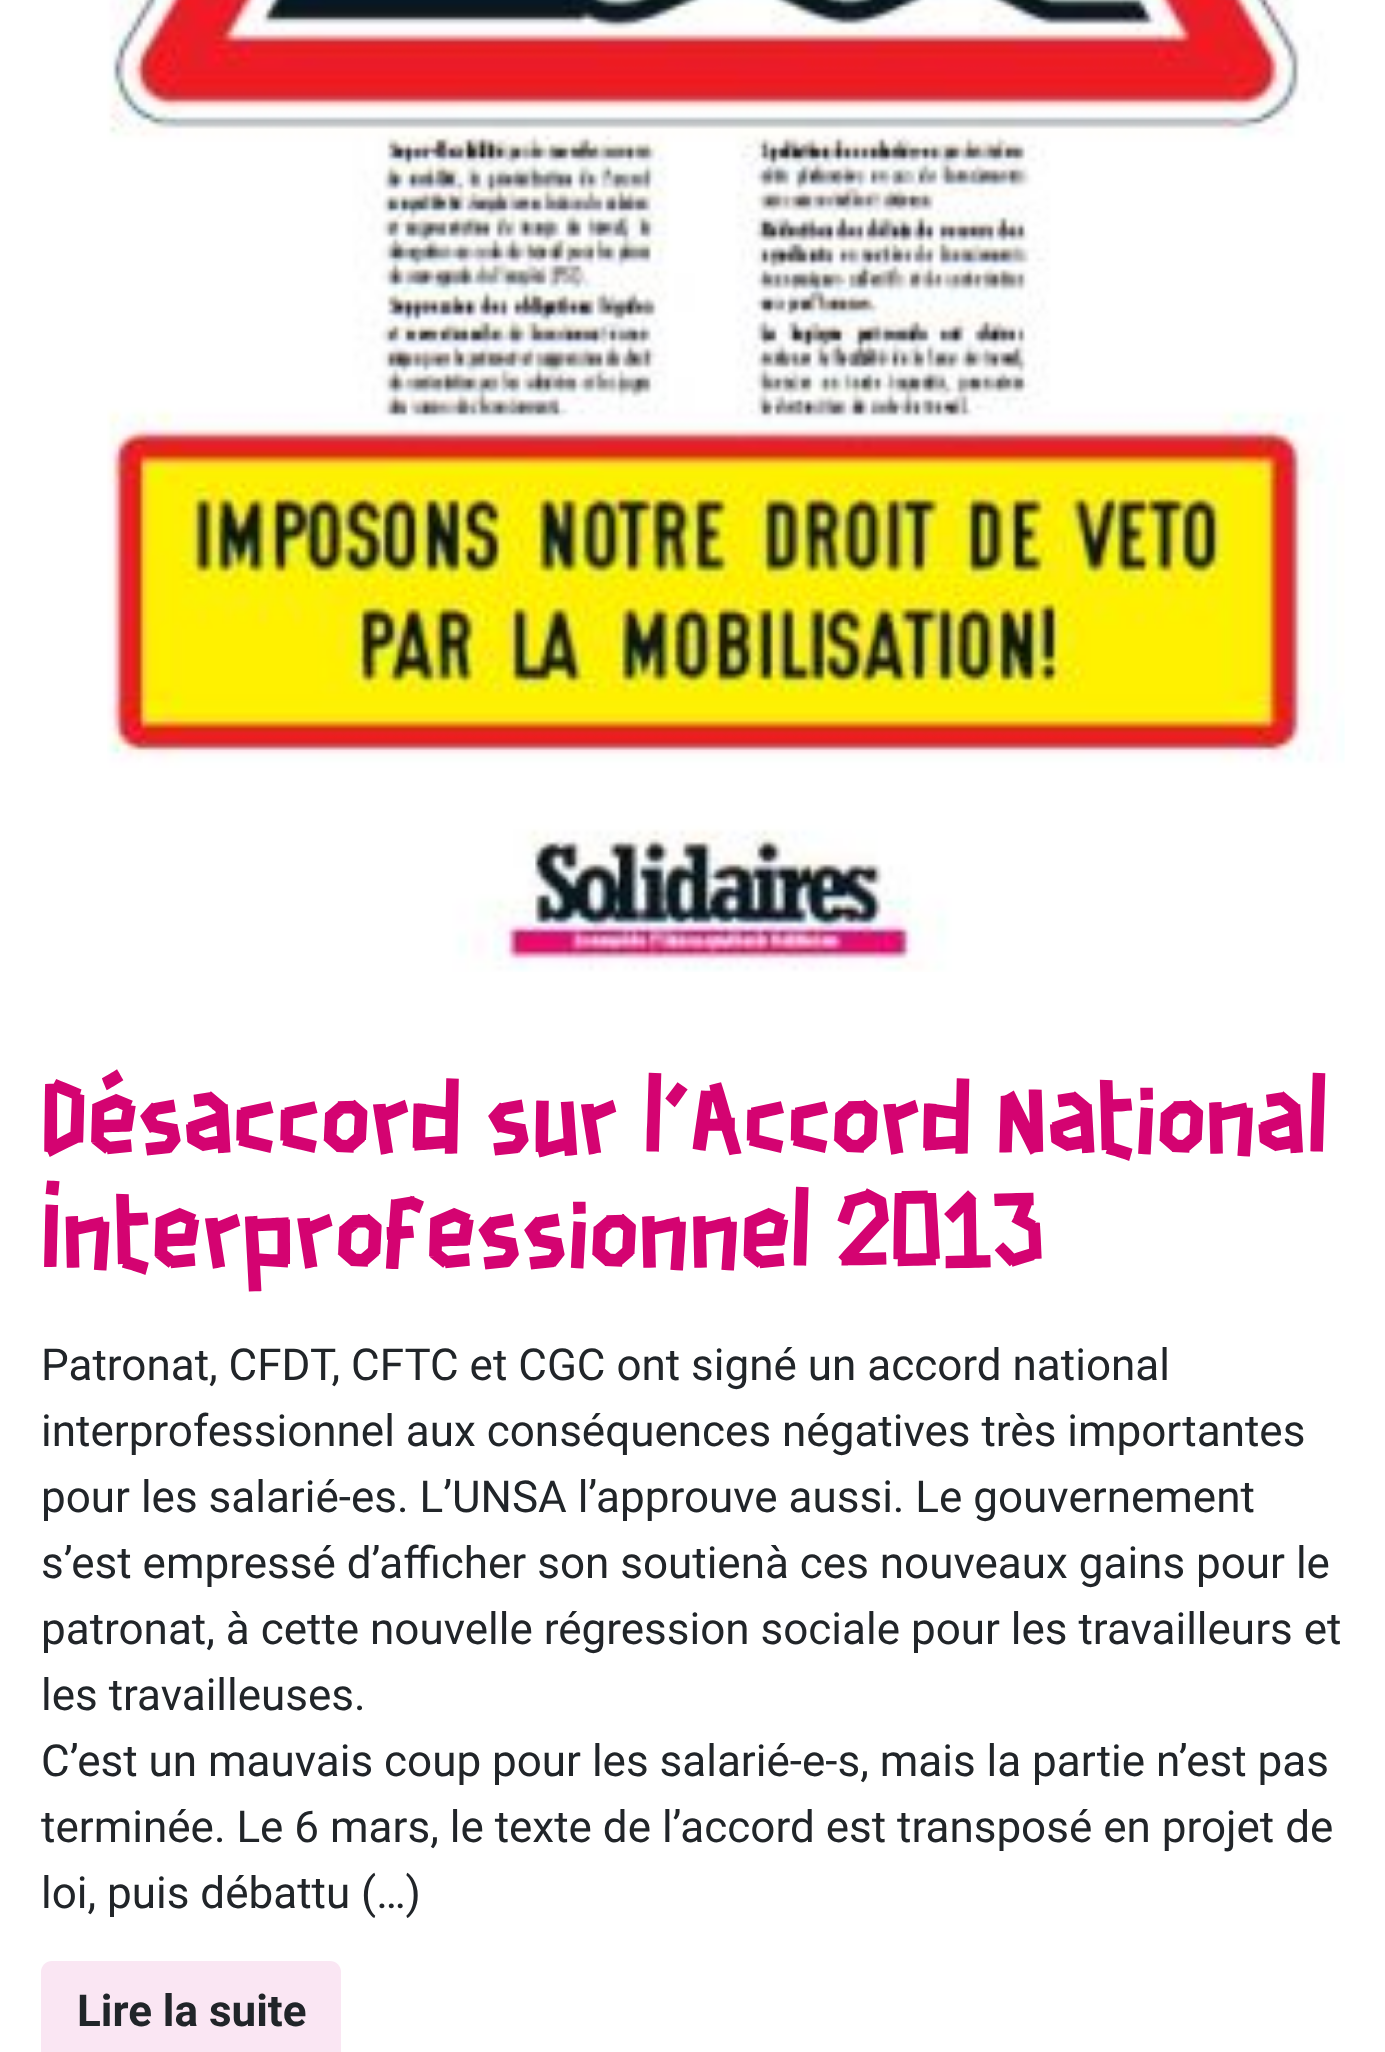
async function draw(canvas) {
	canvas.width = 1385;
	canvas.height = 2052;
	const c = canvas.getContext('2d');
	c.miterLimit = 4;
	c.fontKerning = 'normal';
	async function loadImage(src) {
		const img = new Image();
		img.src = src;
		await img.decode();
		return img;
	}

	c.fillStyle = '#fff';
	c.fillRect(0, 0, 1385, 2052);
	c.drawImage(await loadImage('img1.png'), 107, 0, 1238, 972);
	c.font = '88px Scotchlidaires';
	c.fillStyle = '#d40371';
	c.fillText('Désaccord sur l’Accord National', 41, 1151);
	c.fillText('Interprofessionnel 2013', 41, 1265);
	c.font = '44px Roboto';
	c.fillStyle = '#212529';
	for (const [text, x, y] of [
		['Patronat, CFDT, CFTC et CGC ont signé un accord national', 41, 1380],
		['interprofessionnel aux conséquences négatives très importantes', 41, 1446],
		['pour les salarié-es. L’UNSA l’approuve aussi. Le gouvernement', 41, 1512],
		['s’est empressé d’afficher son soutienà ces nouveaux gains pour le', 41, 1578],
		['patronat, à cette nouvelle régression sociale pour les travailleurs et', 41, 1644],
		['les travailleuses.', 41, 1710],
		['C’est un mauvais coup pour les salarié-e-s, mais la partie n’est pas', 41, 1776],
		['terminée. Le 6 mars, le texte de l’accord est transposé en projet de', 41, 1842],
		['loi, puis débattu (…)', 41, 1908],
	]) {
		c.fillText(text, x, y);
	}
	c.fillStyle = '#fae6f3';
	c.beginPath();
	c.roundRect(41, 1961, 300, 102, 11);
	c.fill();
	c.font = 'bold 44px Roboto';
	c.fillStyle = '#212529';
	c.fillText('Lire la suite', 77, 2026);
}

draw(document.querySelector('canvas'));
